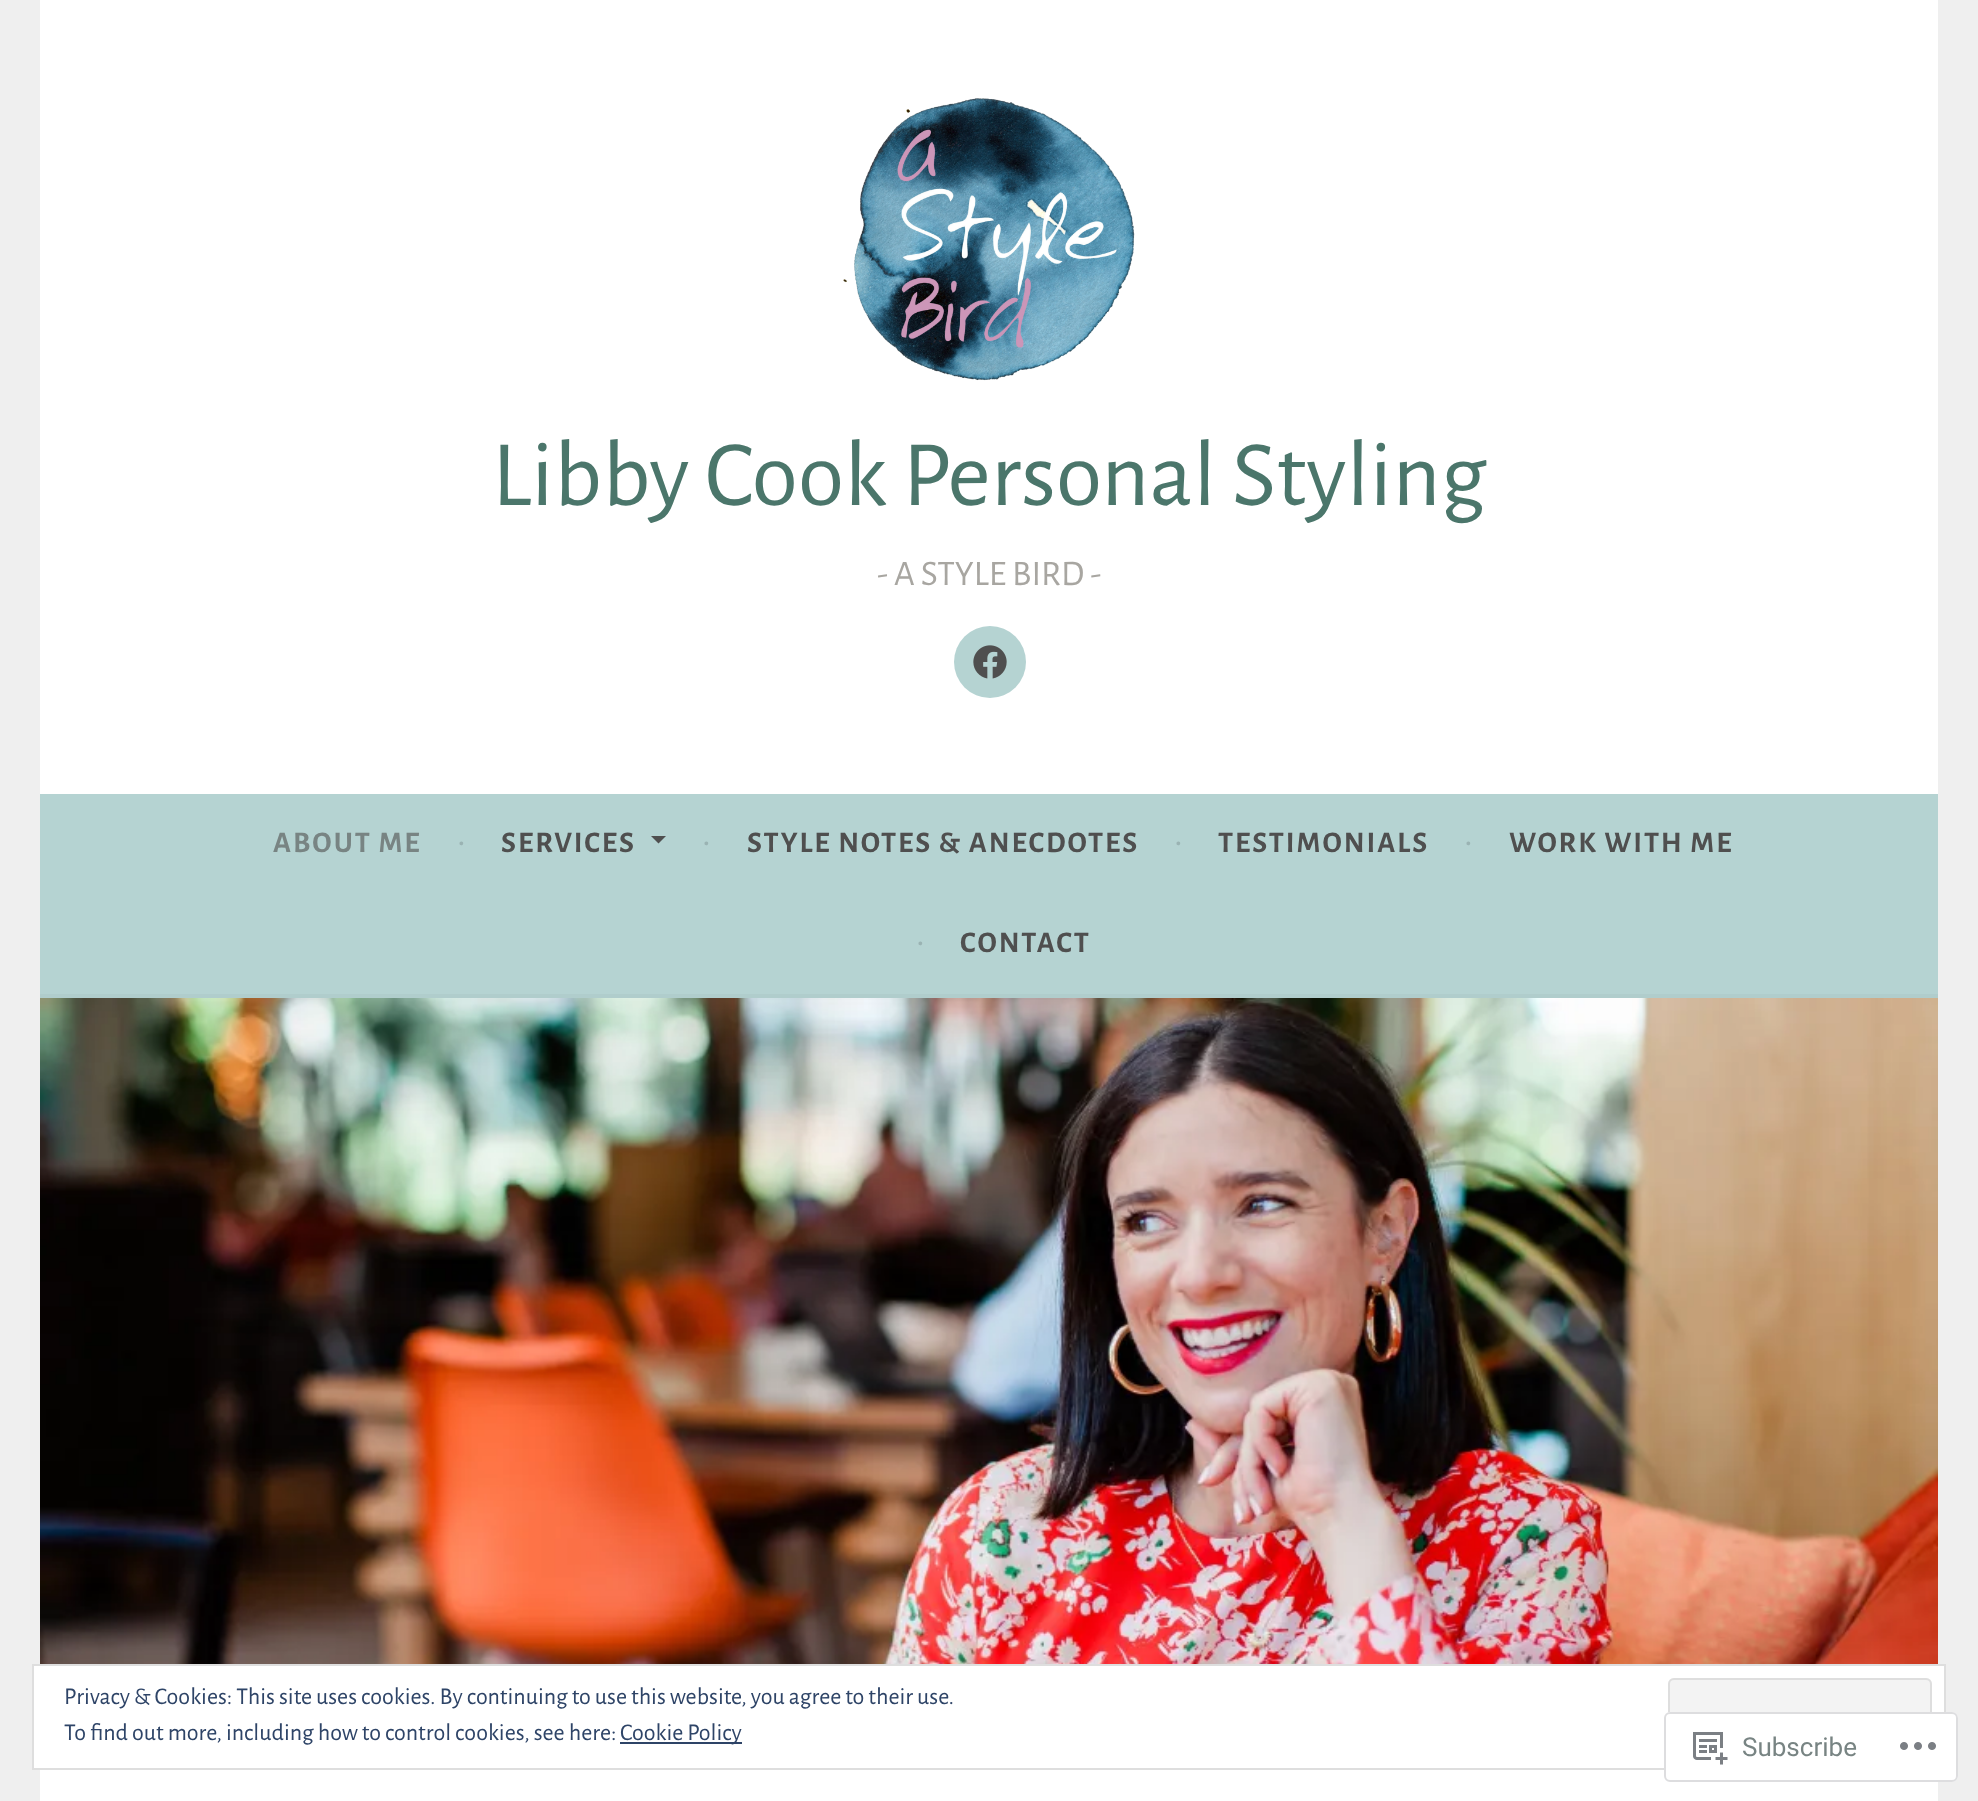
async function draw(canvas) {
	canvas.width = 1978;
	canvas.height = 1801;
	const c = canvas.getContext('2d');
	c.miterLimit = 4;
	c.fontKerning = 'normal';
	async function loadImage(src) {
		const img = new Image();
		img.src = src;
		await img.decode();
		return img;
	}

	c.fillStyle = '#efefef';
	c.fillRect(0, 0, 1978, 1801);
	c.fillStyle = '#fff';
	c.fillRect(40, 0, 1898, 794);
	c.drawImage(await loadImage('img1.png'), 843, 98, 292, 283);
	c.font = '94px Alegreya Sans';
	c.fillStyle = '#4b766b';
	c.fillText('Libby Cook Personal Styling', 492, 505);
	c.font = '36px Alegreya Sans';
	c.fillStyle = '#a8a6a1';
	c.fillText('- A STYLE BIRD -', 877, 585);
	c.fillStyle = '#b5d3d2';
	c.beginPath();
	c.arc(990, 662, 36, 0, 2 * Math.PI);
	c.fill();
	c.drawImage(await loadImage('img2.png'), 973, 645, 34, 34);
	c.fillRect(40, 794, 1898, 200);
	c.fillStyle = '#b0cdcc';
	c.fillRect(40, 994, 1898, 4);
	c.letterSpacing = '2px';
	c.font = 'bold 30px Alegreya Sans';
	c.fillStyle = '#788483';
	c.fillText('ABOUT ME', 273, 852);
	c.letterSpacing = '0px';
	c.font = '36px Alegreya Sans';
	c.fillStyle = '#9ab3b3';
	c.fillText('•', 457, 852);
	c.letterSpacing = '2px';
	c.font = 'bold 30px Alegreya Sans';
	c.fillStyle = '#4f4f4f';
	c.fillText('SERVICES', 501, 852);
	c.beginPath();
	c.moveTo(651, 836);
	c.lineTo(666, 836);
	c.lineTo(658.5, 843.5);
	c.closePath();
	c.fill();
	c.letterSpacing = '0px';
	c.font = '36px Alegreya Sans';
	c.fillStyle = '#9ab3b3';
	c.fillText('•', 702, 852);
	c.letterSpacing = '2px';
	c.font = 'bold 30px Alegreya Sans';
	c.fillStyle = '#4f4f4f';
	c.fillText('STYLE NOTES & ANECDOTES', 747, 852);
	c.letterSpacing = '0px';
	c.font = '36px Alegreya Sans';
	c.fillStyle = '#9ab3b3';
	c.fillText('•', 1174, 852);
	c.letterSpacing = '2px';
	c.font = 'bold 30px Alegreya Sans';
	c.fillStyle = '#4f4f4f';
	c.fillText('TESTIMONIALS', 1218, 852);
	c.letterSpacing = '0px';
	c.font = '36px Alegreya Sans';
	c.fillStyle = '#9ab3b3';
	c.fillText('•', 1464, 852);
	c.letterSpacing = '2px';
	c.font = 'bold 30px Alegreya Sans';
	c.fillStyle = '#4f4f4f';
	c.fillText('WORK WITH ME', 1509, 852);
	c.letterSpacing = '0px';
	c.font = '36px Alegreya Sans';
	c.fillStyle = '#9ab3b3';
	c.fillText('•', 916, 952);
	c.letterSpacing = '2px';
	c.font = 'bold 30px Alegreya Sans';
	c.fillStyle = '#4f4f4f';
	c.fillText('CONTACT', 960, 952);
	c.drawImage(await loadImage('img3.png'), 40, 998, 1898, 666);
	c.fillStyle = '#fff';
	c.fillRect(40, 1770, 1898, 31);
	c.beginPath();
	c.rect(33, 1665, 1912, 104);
	c.fill();
	c.strokeStyle = '#dedede';
	c.lineWidth = 2;
	c.stroke();
	c.letterSpacing = '0px';
	c.font = '24px Alegreya Sans';
	c.fillStyle = '#2e4467';
	c.fillText('Privacy & Cookies: This site uses cookies. By continuing to use this website, you agree to their use.', 64, 1704);
	c.fillStyle = '#f3f3f3';
	c.beginPath();
	c.roundRect(1668, 1678, 264, 78, 6);
	c.fill();
	c.fillStyle = '#dbdbdb';
	c.beginPath();
	c.moveTo(1670, 1746);
	c.lineTo(1670, 1750);
	c.bezierCurveTo(1670, 1752, 1672, 1754, 1674, 1754);
	c.lineTo(1926, 1754);
	c.bezierCurveTo(1928, 1754, 1930, 1752, 1930, 1750);
	c.lineTo(1930, 1746);
	c.bezierCurveTo(1930, 1748, 1928, 1750, 1926, 1750);
	c.lineTo(1674, 1750);
	c.bezierCurveTo(1672, 1750, 1670, 1748, 1670, 1746);
	c.closePath();
	c.fill();
	c.beginPath();
	c.roundRect(1669, 1679, 262, 76, 5);
	c.stroke();
	c.fillStyle = '#2e4467';
	c.fillText('To find out more, including how to control cookies, see here:', 64, 1740);
	c.fillRect(620, 1742, 122, 2);
	c.fillText('Cookie Policy', 620, 1740);
	c.fillStyle = '#fffffffa';
	c.beginPath();
	c.roundRect(1664, 1712, 294, 70, 6);
	c.fill();
	c.beginPath();
	c.roundRect(1665, 1713, 292, 68, 5);
	c.strokeStyle = '#dcdcdefa';
	c.stroke();
	c.drawImage(await loadImage('img4.png'), 1693, 1732, 35, 33);
	c.font = '26px Roboto';
	c.fillStyle = '#788483';
	c.fillText('Subscribe', 1742, 1756);
	c.drawImage(await loadImage('img5.png'), 1900, 1742, 36, 8);
}

draw(document.querySelector('canvas'));
